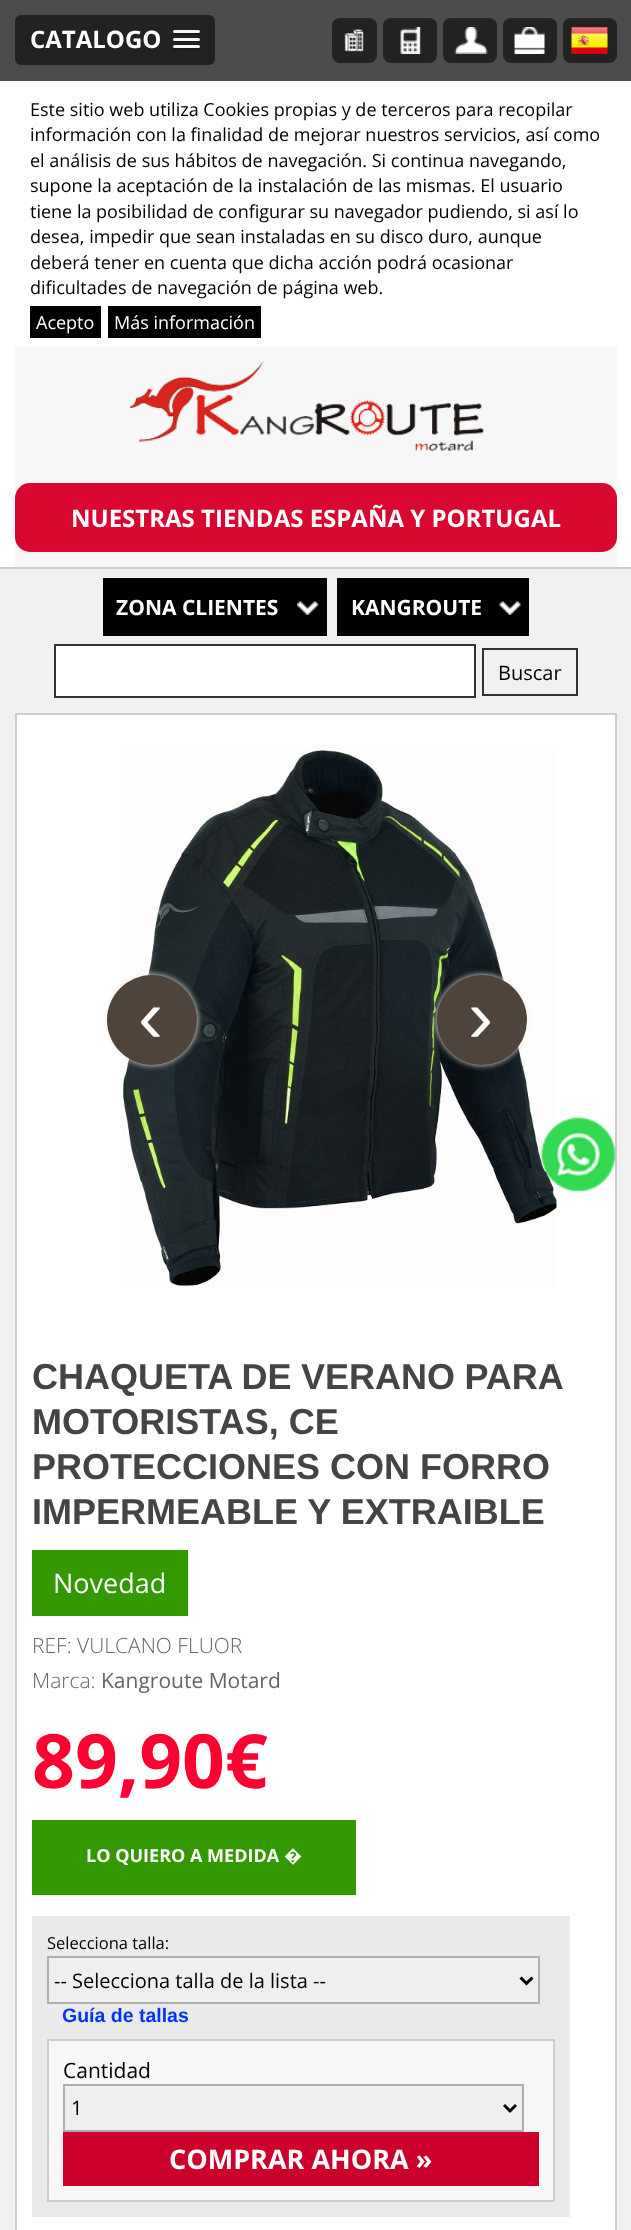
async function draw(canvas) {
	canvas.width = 631;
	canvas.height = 2230;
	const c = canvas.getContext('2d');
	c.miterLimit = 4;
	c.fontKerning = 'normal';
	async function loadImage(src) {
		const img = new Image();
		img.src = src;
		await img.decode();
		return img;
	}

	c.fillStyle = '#f1f1f1';
	c.fillRect(0, 0, 631, 2230);
	c.fillStyle = '#4c4c4c';
	c.fillRect(0, 0, 631, 81);
	c.fillStyle = '#222';
	c.beginPath();
	c.roundRect(15, 15, 200, 50, 6);
	c.fill();
	c.font = 'bold 24px Open Sans';
	c.fillStyle = '#fff';
	c.fillText('CATALOGO', 30, 48);
	c.fillStyle = '#1a1a1a';
	c.beginPath();
	c.moveTo(173, 33);
	c.bezierCurveTo(171.5, 36, 178.5, 35, 178.5, 35);
	c.lineTo(199, 35);
	c.bezierCurveTo(200, 34.5, 200.5, 33, 199.5, 32);
	c.lineTo(198, 33);
	c.bezierCurveTo(196, 33.5, 174, 33.5, 173, 33);
	c.closePath();
	c.fill();
	c.fillStyle = '#f5f5f5';
	c.beginPath();
	c.roundRect(173, 30, 27, 3, 1.5);
	c.fill();
	c.fillStyle = '#1a1a1a';
	c.beginPath();
	c.moveTo(173, 40);
	c.bezierCurveTo(172.5, 43, 178, 42, 178.5, 42);
	c.lineTo(198.5, 42);
	c.bezierCurveTo(200, 42, 200.5, 40, 199.5, 39.5);
	c.lineTo(198.5, 40.5);
	c.bezierCurveTo(197, 41, 173.5, 40.5, 173, 40);
	c.closePath();
	c.fill();
	c.fillStyle = '#f5f5f5';
	c.beginPath();
	c.roundRect(173, 38, 27, 3, 1.5);
	c.fill();
	c.fillStyle = '#1a1a1a';
	c.beginPath();
	c.moveTo(173, 48);
	c.bezierCurveTo(171.5, 51, 178.5, 50, 178.5, 50);
	c.lineTo(199, 50);
	c.bezierCurveTo(200, 49.5, 200.5, 48, 199.5, 47);
	c.lineTo(198, 48);
	c.bezierCurveTo(196, 48.5, 174, 48.5, 173, 48);
	c.closePath();
	c.fill();
	c.fillStyle = '#f5f5f5';
	c.beginPath();
	c.roundRect(173, 45, 27, 3, 1.5);
	c.fill();
	c.fillStyle = '#222';
	c.beginPath();
	c.roundRect(332, 18, 45, 45, 8);
	c.fill();
	c.drawImage(await loadImage('img1.png'), 344, 29, 20, 23);
	c.beginPath();
	c.roundRect(383, 18, 54, 45, 8);
	c.fill();
	c.drawImage(await loadImage('img2.png'), 400, 27, 21, 27);
	c.beginPath();
	c.roundRect(443, 18, 54, 45, 8);
	c.fill();
	c.drawImage(await loadImage('img3.png'), 454, 27, 34, 27);
	c.beginPath();
	c.roundRect(503, 18, 54, 45, 8);
	c.fill();
	c.drawImage(await loadImage('img4.png'), 514, 27, 31, 27);
	c.beginPath();
	c.roundRect(563, 18, 54, 45, 8);
	c.fill();
	c.drawImage(await loadImage('img5.png'), 571, 27, 37, 27);
	c.fillStyle = '#fff';
	c.fillRect(0, 81, 631, 486);
	c.font = '18px Open Sans';
	c.fillStyle = '#000';
	for (const [text, x, y] of [
		['Este sitio web utiliza Cookies propias y de terceros para recopilar', 30, 116],
		['información con la finalidad de mejorar nuestros servicios, así como', 30, 141],
		['el análisis de sus hábitos de navegación. Si continua navegando,', 30, 167],
		['supone la aceptación de la instalación de las mismas. El usuario', 30, 192],
		['tiene la posibilidad de configurar su navegador pudiendo, si así lo', 30, 218],
		['desea, impedir que sean instaladas en su disco duro, aunque', 30, 243],
		['deberá tener en cuenta que dicha acción podrá ocasionar', 30, 269],
		['dificultades de navegación de página web.', 30, 294],
	]) {
		c.fillText(text, x, y);
	}
	c.fillRect(30, 306, 71, 32);
	c.fillStyle = '#fff';
	c.fillText('Acepto', 36, 329);
	c.fillStyle = '#000';
	c.fillRect(108, 306, 153, 32);
	c.fillStyle = '#fff';
	c.fillText('Más información', 114, 329);
	c.fillStyle = '#ccc';
	c.fillRect(0, 567, 631, 2);
	c.fillStyle = '#f7f7f7';
	c.fillRect(15, 347, 602, 220);
	c.drawImage(await loadImage('img6.png'), 129, 361, 355, 90);
	c.fillStyle = '#d90730';
	c.beginPath();
	c.roundRect(15, 483, 602, 69, 15);
	c.fill();
	c.font = 'bold 24px Open Sans';
	c.fillStyle = '#fff';
	c.fillText('NUESTRAS TIENDAS ESPAÑA Y PORTUGAL', 71, 527);
	c.fillStyle = '#000';
	c.fillRect(103, 578, 224, 58);
	c.drawImage(await loadImage('img7.png'), 297, 601, 22, 14);
	c.font = 'bold 21px Open Sans';
	c.fillStyle = '#fff';
	c.fillText('ZONA CLIENTES', 116, 615);
	c.fillStyle = '#000';
	c.fillRect(337, 578, 192, 58);
	c.drawImage(await loadImage('img8.png'), 499, 601, 22, 14);
	c.fillStyle = '#fff';
	c.fillText('KANGROUTE', 351, 615);
	c.beginPath();
	c.rect(55, 645, 420, 52);
	c.fill();
	c.strokeStyle = '#333';
	c.lineWidth = 2;
	c.stroke();
	c.strokeRect(483, 649, 94, 46);
	c.font = '20px Open Sans';
	c.fillStyle = '#000';
	c.fillText('Buscar', 498, 680);
	c.fillStyle = '#fff';
	c.beginPath();
	c.rect(16, 714, 600, 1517);
	c.fill();
	c.strokeStyle = '#ccc';
	c.stroke();
	c.drawImage(await loadImage('img9.png'), 121, 747, 436, 540);
	c.fillStyle = '#f0efe7';
	c.filter = 'blur(3px)';
	c.beginPath();
	c.roundRect(107, 975, 90, 90, 45);
	c.fill();
	c.filter = 'none';
	c.fillStyle = '#4e443c';
	c.beginPath();
	c.arc(152, 1020, 45, 0, 2 * Math.PI);
	c.fill();
	c.font = '75px Liberation Sans';
	c.fillStyle = '#fff';
	c.fillText('‹', 138, 1042);
	c.fillStyle = '#f0efe7';
	c.filter = 'blur(3px)';
	c.beginPath();
	c.roundRect(437, 975, 90, 90, 45);
	c.fill();
	c.filter = 'none';
	c.fillStyle = '#4e443c';
	c.beginPath();
	c.arc(482, 1020, 45, 0, 2 * Math.PI);
	c.fill();
	c.fillStyle = '#fff';
	c.fillText('›', 468, 1042);
	c.wordSpacing = '-0.5px';
	c.font = 'bold 36px Liberation Sans';
	c.fillStyle = '#444';
	c.fillText('CHAQUETA DE VERANO PARA', 32, 1389);
	c.wordSpacing = '0px';
	for (const [text, x, y] of [
		['MOTORISTAS, CE', 32, 1434],
		['PROTECCIONES CON FORRO', 32, 1479],
		['IMPERMEABLE Y EXTRAIBLE', 32, 1524],
	]) {
		c.fillText(text, x, y);
	}
	c.fillStyle = '#390';
	c.fillRect(32, 1550, 156, 66);
	c.font = '27px Open Sans';
	c.fillStyle = '#fff';
	c.fillText('Novedad', 53, 1593);
	c.font = '300 21px Open Sans';
	c.fillStyle = '#666';
	c.fillText('REF: VULCANO FLUOR', 32, 1653);
	c.fillText('Marca:', 32, 1688);
	c.font = '21px Open Sans';
	c.fillText('Kangroute Motard', 101, 1688);
	c.font = 'bold 75px Open Sans';
	c.fillStyle = '#f03';
	c.fillText('89,90€', 32, 1788);
	c.fillStyle = '#390';
	c.fillRect(32, 1820, 324, 75);
	c.font = 'bold 18px Open Sans';
	c.fillStyle = '#fff';
	c.fillText('LO QUIERO A MEDIDA �', 86, 1862);
	c.fillStyle = '#eaeaea';
	c.fillRect(32, 1916, 538, 301);
	c.font = '16.5px Open Sans';
	c.fillStyle = '#000';
	c.fillText('Selecciona talla:', 47, 1949);
	c.fillStyle = '#efefef';
	c.beginPath();
	c.rect(48, 1957, 491, 46);
	c.fill();
	c.strokeStyle = '#afafaf';
	c.stroke();
	c.beginPath();
	c.moveTo(520.5, 1977.5);
	c.lineTo(526.5, 1983.5);
	c.lineTo(532.5, 1977.5);
	c.strokeStyle = '#000';
	c.lineWidth = 3;
	c.stroke();
	c.font = '20px Open Sans';
	c.fillStyle = '#000';
	c.fillText('-- Selecciona talla de la lista --', 54, 1988);
	c.font = 'bold 19.5px Liberation Sans';
	c.fillStyle = '#03f';
	c.fillText('Guía de tallas', 62, 2022);
	c.fillStyle = '#f7f7f7';
	c.beginPath();
	c.rect(48, 2040, 506, 161);
	c.fill();
	c.strokeStyle = '#ccc';
	c.lineWidth = 2;
	c.stroke();
	c.font = '21px Open Sans';
	c.fillStyle = '#000';
	c.fillText('Cantidad', 63, 2078);
	c.fillStyle = '#efefef';
	c.beginPath();
	c.rect(64, 2085, 459, 46);
	c.fill();
	c.strokeStyle = '#afafaf';
	c.stroke();
	c.beginPath();
	c.moveTo(504, 2105);
	c.lineTo(510, 2111);
	c.lineTo(516, 2105);
	c.strokeStyle = '#000';
	c.lineWidth = 3;
	c.stroke();
	c.font = '20px Open Sans';
	c.fillStyle = '#000';
	c.fillText('1', 71, 2115);
	c.fillStyle = '#cb002b';
	c.fillRect(63, 2132, 476, 54);
	c.font = 'bold 27px Open Sans';
	c.fillStyle = '#fff';
	c.fillText('COMPRAR AHORA »', 169, 2169);
	c.drawImage(await loadImage('img10.png'), 541, 1117, 75, 75);
}

draw(document.querySelector('canvas'));
